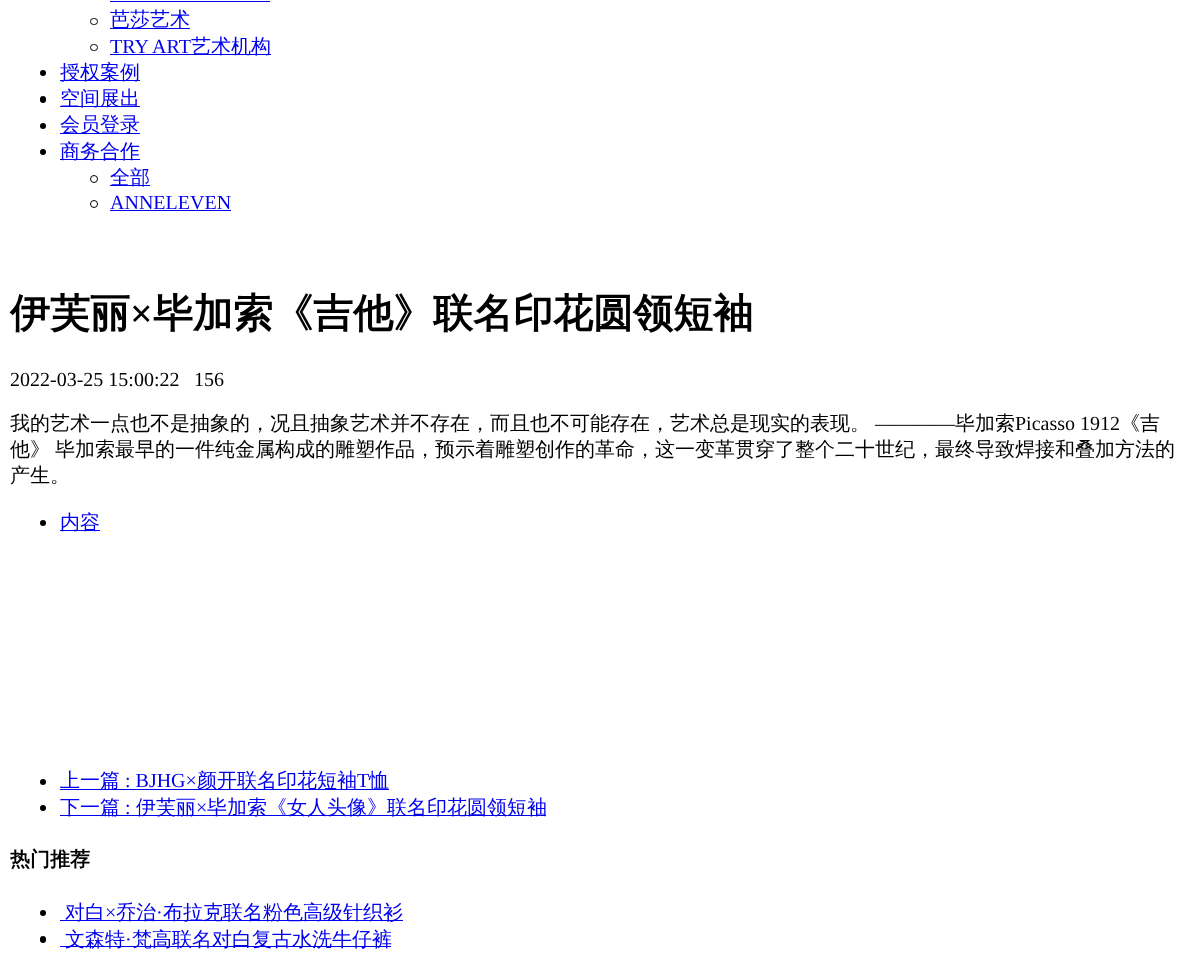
async function draw(canvas) {
	canvas.width = 1197;
	canvas.height = 962;
	const c = canvas.getContext('2d');
	c.miterLimit = 4;
	c.fontKerning = 'normal';

	c.fillStyle = '#fff';
	c.fillRect(0, 0, 1197, 962);
	c.fillStyle = '#00e';
	c.fillRect(110, 1, 160, 1);
	c.beginPath();
	c.roundRect(90.5, 18.5, 7, 6, 3);
	c.strokeStyle = '#000';
	c.stroke();
	c.fillRect(110, 28, 80, 1);
	c.font = '500 20px WenQuanYi Zen Hei';
	c.fillText('芭莎艺术', 110, 26);
	c.beginPath();
	c.roundRect(90.5, 44.5, 7, 6, 3);
	c.stroke();
	c.font = '20px Liberation Serif';
	c.fillText('TRY ART', 110, 53);
	c.fillRect(110, 54, 161, 1);
	c.font = '500 20px WenQuanYi Zen Hei';
	c.fillText('艺术机构', 191, 53);
	c.fillStyle = '#000';
	c.beginPath();
	c.arc(43, 73, 3, 0, 2 * Math.PI);
	c.fill();
	c.fillStyle = '#00e';
	c.fillRect(60, 80, 80, 1);
	c.fillText('授权案例', 60, 79);
	c.fillStyle = '#000';
	c.beginPath();
	c.roundRect(40, 96, 6, 7, 3);
	c.fill();
	c.fillStyle = '#00e';
	c.fillRect(60, 106, 80, 1);
	c.fillText('空间展出', 60, 105);
	c.fillStyle = '#000';
	c.beginPath();
	c.arc(43, 126, 3, 0, 2 * Math.PI);
	c.fill();
	c.fillStyle = '#00e';
	c.fillRect(60, 133, 80, 1);
	c.fillText('会员登录', 60, 131);
	c.fillStyle = '#000';
	c.beginPath();
	c.arc(43, 152, 3, 0, 2 * Math.PI);
	c.fill();
	c.fillStyle = '#00e';
	c.fillRect(60, 159, 80, 1);
	c.fillText('商务合作', 60, 158);
	c.beginPath();
	c.arc(94, 179, 3.5, 0, 2 * Math.PI);
	c.stroke();
	c.fillRect(110, 185, 40, 1);
	c.fillText('全部', 110, 184);
	c.beginPath();
	c.arc(94, 204, 3.5, 0, 2 * Math.PI);
	c.stroke();
	c.font = '20px Liberation Serif';
	c.fillText('ANNELEVEN', 110, 209);
	c.fillRect(110, 210, 121, 1);
	c.font = 'bold 40px WenQuanYi Zen Hei';
	c.fillStyle = '#000';
	c.fillText('伊芙丽', 10, 327);
	c.font = 'bold 40px Liberation Serif';
	c.fillText('×', 130, 327);
	c.font = 'bold 40px WenQuanYi Zen Hei';
	c.fillText('毕加索《吉他》联名印花圆领短袖', 153, 327);
	c.font = '20px Liberation Serif';
	c.fillText('2022-03-25 15:00:22', 10, 386);
	c.fillText('156', 194, 386);
	c.font = '500 20px WenQuanYi Zen Hei';
	c.fillText('我的艺术一点也不是抽象的，况且抽象艺术并不存在，而且也不可能存在，艺术总是现实的表现。', 10, 430);
	c.font = '20px Liberation Serif';
	c.fillText('————', 875, 430);
	c.font = '500 20px WenQuanYi Zen Hei';
	c.fillText('毕加索', 955, 430);
	c.font = '20px Liberation Serif';
	c.fillText('Picasso 1912', 1015, 430);
	c.font = '500 20px WenQuanYi Zen Hei';
	c.fillText('《吉', 1120, 430);
	c.wordSpacing = '-1px';
	c.fillText('他》 毕加索最早的一件纯金属构成的雕塑作品，预示着雕塑创作的革命，这一变革贯穿了整个二十世纪，最终导致焊接和叠加方法的', 10, 456);
	c.wordSpacing = '0px';
	c.fillText('产生。', 10, 482);
	c.beginPath();
	c.arc(43, 523, 3, 0, 2 * Math.PI);
	c.fill();
	c.fillStyle = '#00e';
	c.fillRect(60, 530, 40, 1);
	c.fillText('内容', 60, 529);
	c.fillStyle = '#000';
	c.beginPath();
	c.arc(43, 782, 3, 0, 2 * Math.PI);
	c.fill();
	c.fillStyle = '#00e';
	c.fillRect(60, 789, 329, 1);
	c.fillText('上一篇', 60, 787);
	c.font = '20px Liberation Serif';
	c.fillText(': BJHG×', 125, 787);
	c.font = '500 20px WenQuanYi Zen Hei';
	c.fillText('颜开联名印花短袖', 197, 787);
	c.font = '20px Liberation Serif';
	c.fillText('T', 357, 787);
	c.font = '500 20px WenQuanYi Zen Hei';
	c.fillText('恤', 369, 787);
	c.fillStyle = '#000';
	c.beginPath();
	c.arc(43, 808, 3, 0, 2 * Math.PI);
	c.fill();
	c.fillStyle = '#00e';
	c.fillRect(60, 815, 486, 1);
	c.fillText('下一篇', 60, 814);
	c.font = '20px Liberation Serif';
	c.fillText(':', 125, 814);
	c.font = '500 20px WenQuanYi Zen Hei';
	c.fillText('伊芙丽', 136, 814);
	c.font = '20px Liberation Serif';
	c.fillText('×', 196, 814);
	c.font = '500 20px WenQuanYi Zen Hei';
	c.fillText('毕加索《女人头像》联名印花圆领短袖', 207, 814);
	c.font = 'bold 20px WenQuanYi Zen Hei';
	c.fillStyle = '#000';
	c.fillText('热门推荐', 10, 866);
	c.beginPath();
	c.arc(43, 913, 3, 0, 2 * Math.PI);
	c.fill();
	c.fillStyle = '#00e';
	c.fillRect(60, 920, 343, 1);
	c.font = '500 20px WenQuanYi Zen Hei';
	c.fillText('对白', 65, 919);
	c.font = '20px Liberation Serif';
	c.fillText('×', 105, 919);
	c.font = '500 20px WenQuanYi Zen Hei';
	c.fillText('乔治', 116, 919);
	c.font = '20px Liberation Serif';
	c.fillText('·', 156, 919);
	c.font = '500 20px WenQuanYi Zen Hei';
	c.fillText('布拉克联名粉色高级针织衫', 163, 919);
	c.fillStyle = '#000';
	c.beginPath();
	c.roundRect(40, 936, 6, 7, 3);
	c.fill();
	c.fillStyle = '#00e';
	c.fillRect(60, 946, 331, 1);
	c.fillText('文森特', 65, 946);
	c.font = '20px Liberation Serif';
	c.fillText('·', 125, 946);
	c.font = '500 20px WenQuanYi Zen Hei';
	c.fillText('梵高联名对白复古水洗牛仔裤', 132, 946);
}

draw(document.querySelector('canvas'));
